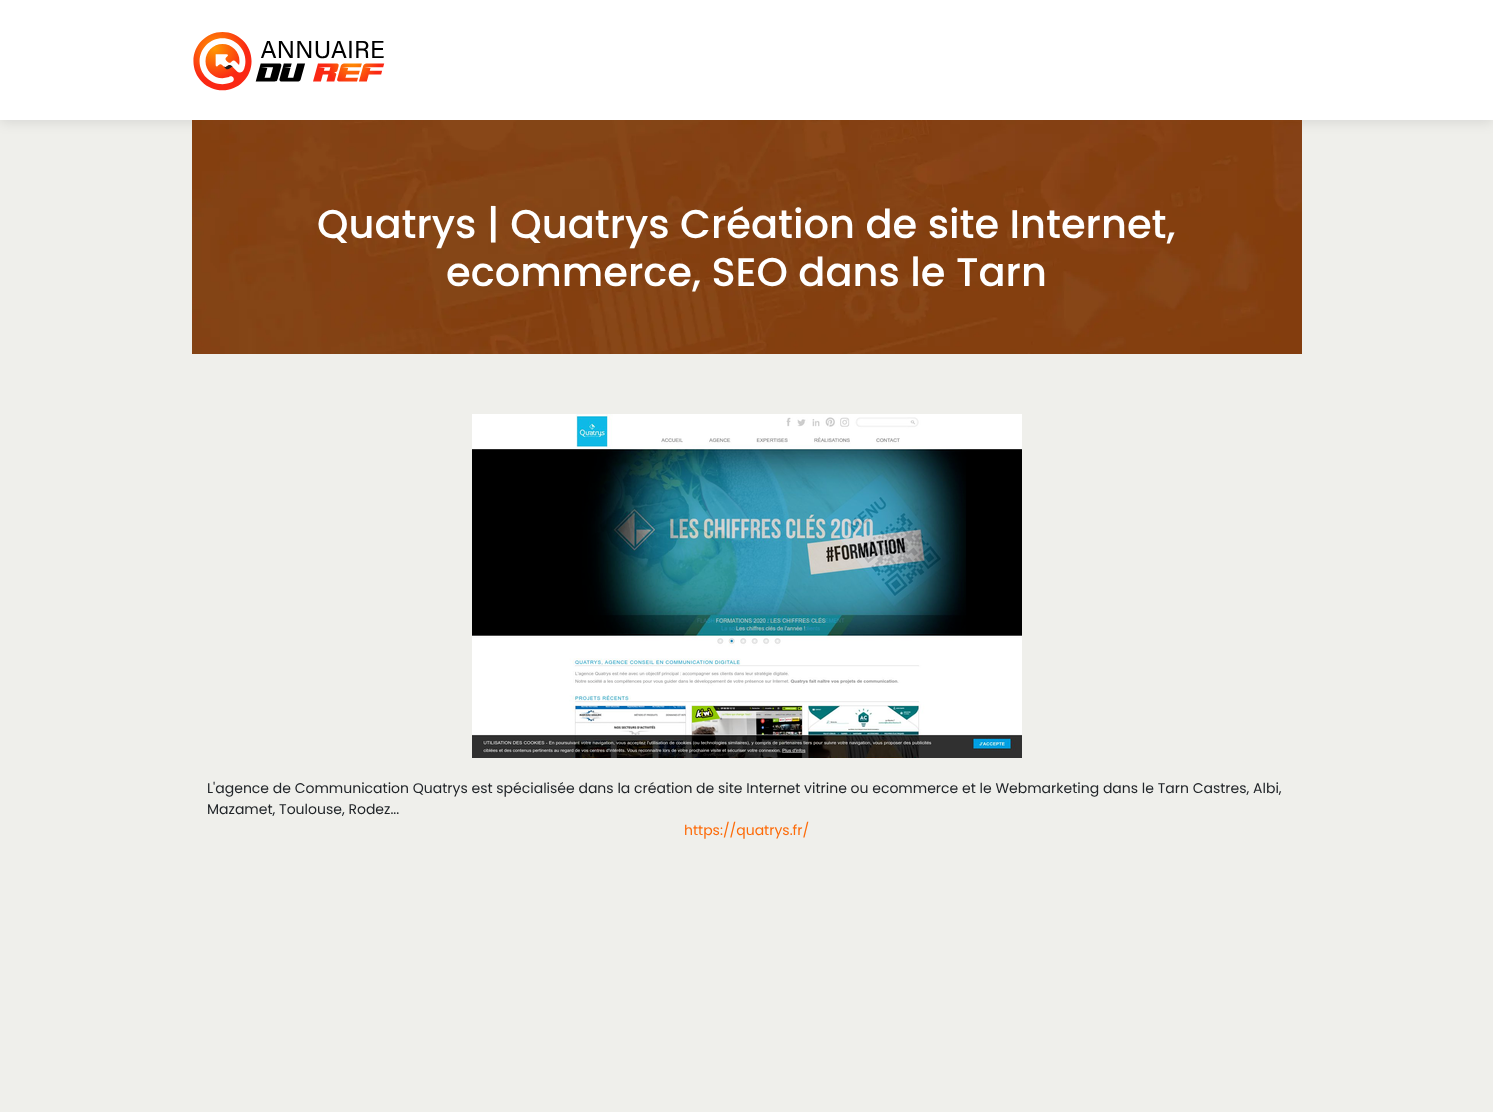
async function draw(canvas) {
	canvas.width = 1493;
	canvas.height = 1112;
	const c = canvas.getContext('2d');
	c.miterLimit = 4;
	c.fontKerning = 'normal';
	async function loadImage(src) {
		const img = new Image();
		img.src = src;
		await img.decode();
		return img;
	}

	c.fillStyle = '#efefeb';
	c.fillRect(0, 0, 1493, 1112);
	c.fillStyle = '#0000001a';
	c.filter = 'blur(6.5px)';
	c.beginPath();
	c.rect(0, 2, 1493, 120);
	c.fill();
	c.filter = 'none';
	c.fillStyle = '#fff';
	c.fillRect(0, 0, 1493, 120);
	c.drawImage(await loadImage('img1.png'), 193, 32, 192, 59);
	c.drawImage(await loadImage('img2.png'), 192, 120, 1110, 234);
	c.font = '500 40px Poppins';
	c.fillText('Quatrys | Quatrys Création de site Internet,', 317, 238);
	c.fillText('ecommerce, SEO dans le Tarn', 446, 286);
	c.drawImage(await loadImage('img3.png'), 472, 414, 550, 344);
	c.font = '14px Poppins';
	c.fillStyle = '#212529';
	c.fillText('L\'agence de Communication Quatrys est spécialisée dans la création de site Internet vitrine ou ecommerce et le Webmarketing dans le Tarn Castres, Albi,', 207, 793);
	c.fillText('Mazamet, Toulouse, Rodez...', 207, 814);
	c.fillStyle = '#fd6b09';
	c.fillText('https://quatrys.fr/', 684, 835);
}

draw(document.querySelector('canvas'));
